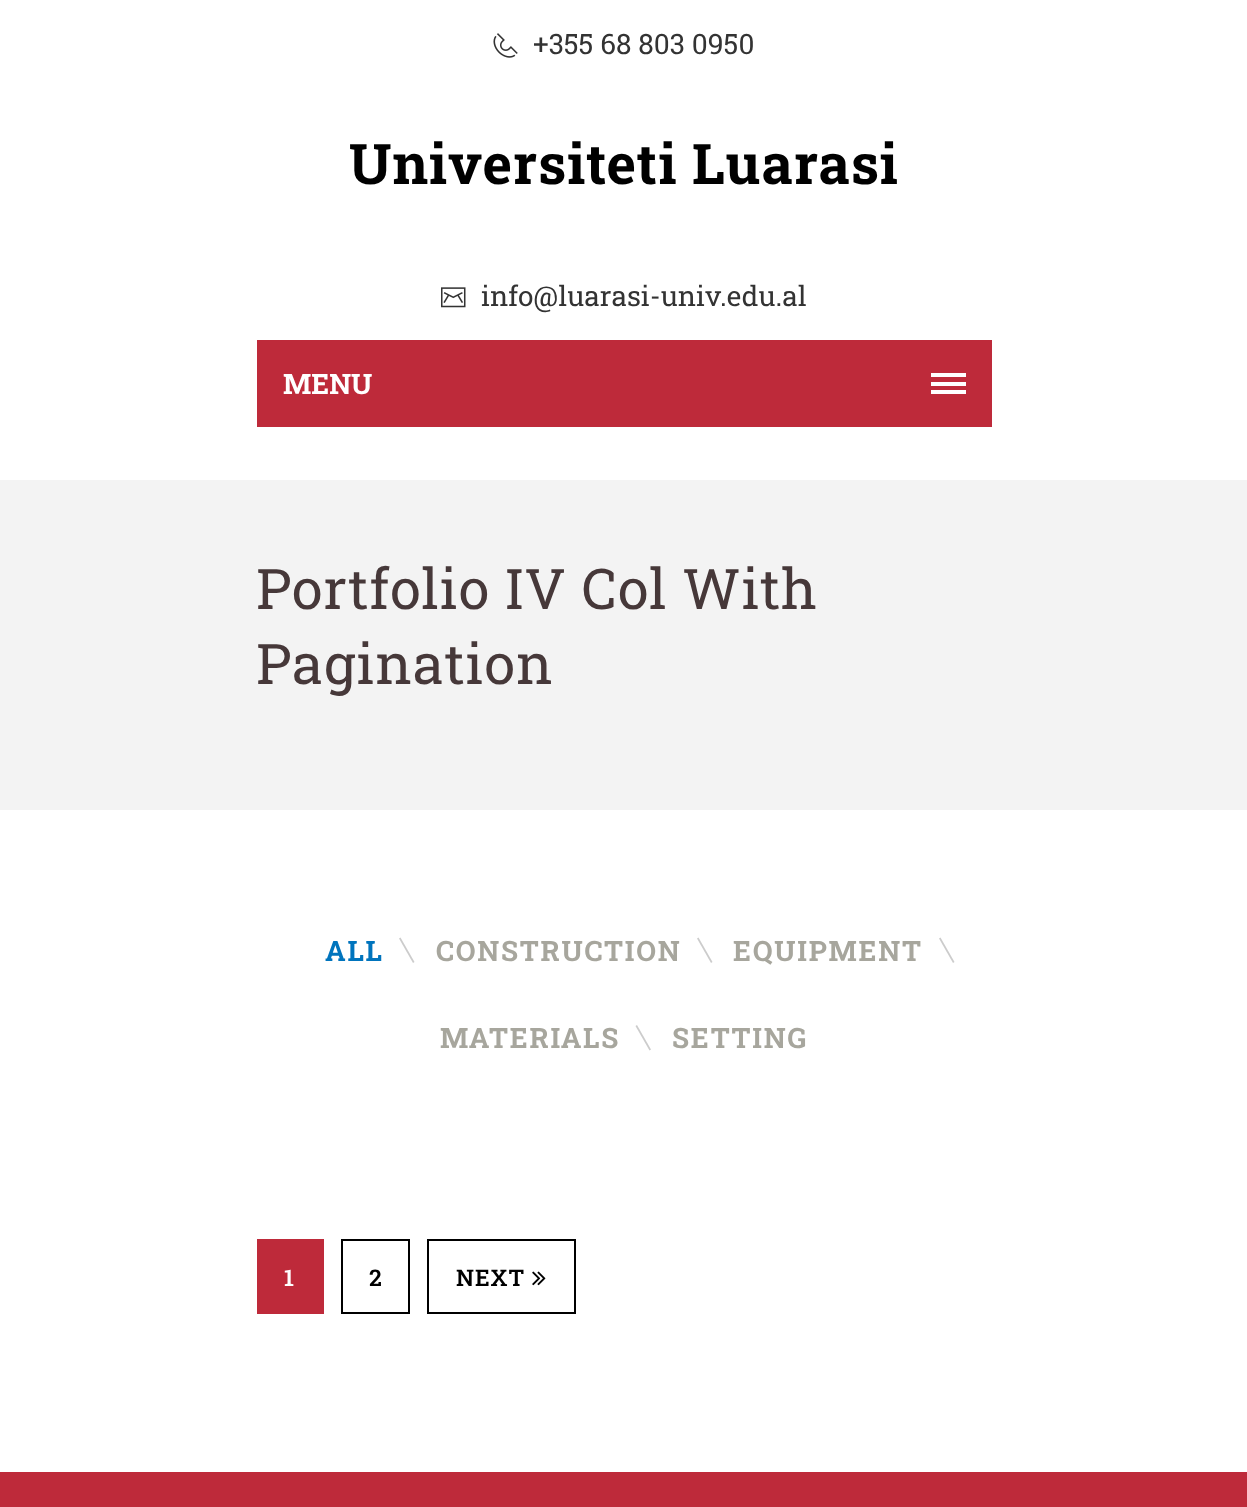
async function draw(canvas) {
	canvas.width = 1247;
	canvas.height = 1507;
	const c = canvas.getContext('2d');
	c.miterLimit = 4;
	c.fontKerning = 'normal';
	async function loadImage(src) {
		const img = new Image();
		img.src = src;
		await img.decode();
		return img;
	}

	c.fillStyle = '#fff';
	c.fillRect(0, 0, 1247, 1507);
	c.drawImage(await loadImage('img1.png'), 493, 33, 25, 25);
	c.font = '28px Roboto Slab';
	c.fillStyle = '#333';
	c.fillText('+355 68 803 0950', 533, 54);
	c.letterSpacing = '0.9px';
	c.font = 'bold 56px Roboto Slab';
	c.fillStyle = '#000';
	c.fillText('Universiteti Luarasi', 349, 184);
	c.drawImage(await loadImage('img2.png'), 441, 287, 25, 21);
	c.letterSpacing = '0px';
	c.font = '28px Roboto Slab';
	c.fillStyle = '#333';
	c.fillText('info@luarasi-univ.edu.al', 481, 306);
	c.fillStyle = '#be2a3a';
	c.fillRect(257, 340, 735, 87);
	c.font = 'bold 28px Roboto Slab';
	c.fillStyle = '#fff';
	c.fillText('MENU', 283, 394);
	for (const [x, y, w, h, color] of [
		[931, 382, 35, 4, '#fff'],
		[931, 373, 35, 4, '#fff'],
		[931, 390, 35, 4, '#fff'],
		[0, 480, 1247, 330, '#f3f3f3'],
	]) {
		c.fillStyle = color;
		c.fillRect(x, y, w, h);
	}
	c.letterSpacing = '0.9px';
	c.font = '56px Roboto Slab';
	c.fillStyle = '#463839';
	c.fillText('Portfolio IV Col With', 256, 609);
	c.fillText('Pagination', 256, 684);
	c.letterSpacing = '1.75px';
	c.font = 'bold 28px Roboto Slab';
	c.fillStyle = '#0074bd';
	c.fillText('ALL', 325, 961);
	c.fillStyle = '#ccc';
	c.beginPath();
	c.moveTo(399, 938.5);
	c.lineTo(400.5, 937.5);
	c.lineTo(414.5, 962);
	c.lineTo(413, 963);
	c.closePath();
	c.fill();
	c.fillStyle = '#a7a69d';
	c.fillText('CONSTRUCTION', 436, 961);
	c.fillStyle = '#ccc';
	c.beginPath();
	c.moveTo(697, 938.5);
	c.lineTo(698.5, 937.5);
	c.lineTo(712.5, 962);
	c.lineTo(711, 963);
	c.closePath();
	c.fill();
	c.fillStyle = '#a7a69d';
	c.fillText('EQUIPMENT', 733, 961);
	c.fillStyle = '#ccc';
	c.beginPath();
	c.moveTo(939, 938.5);
	c.lineTo(940.5, 937.5);
	c.lineTo(954.5, 962);
	c.lineTo(953, 963);
	c.closePath();
	c.fill();
	c.fillStyle = '#a7a69d';
	c.fillText('MATERIALS', 440, 1048);
	c.fillStyle = '#ccc';
	c.beginPath();
	c.moveTo(635.5, 1026);
	c.lineTo(637, 1025);
	c.lineTo(651, 1049.5);
	c.lineTo(649.5, 1050.5);
	c.closePath();
	c.fill();
	c.fillStyle = '#a7a69d';
	c.fillText('SETTING', 672, 1048);
	c.fillStyle = '#be2a3a';
	c.fillRect(257, 1239, 67, 75);
	c.letterSpacing = '0.9px';
	c.font = '600 23px Roboto Slab';
	c.fillStyle = '#fff';
	c.fillText('1', 284, 1286);
	c.strokeStyle = '#000';
	c.lineWidth = 2;
	c.strokeRect(342, 1240, 67, 73);
	c.fillStyle = '#000';
	c.fillText('2', 369, 1286);
	c.strokeRect(428, 1240, 147, 73);
	c.fillText('NEXT', 456, 1286);
	c.drawImage(await loadImage('img3.png'), 532, 1271, 14, 15);
	c.fillStyle = '#be2a3a';
	c.fillRect(0, 1472, 1247, 35);
}

draw(document.querySelector('canvas'));
